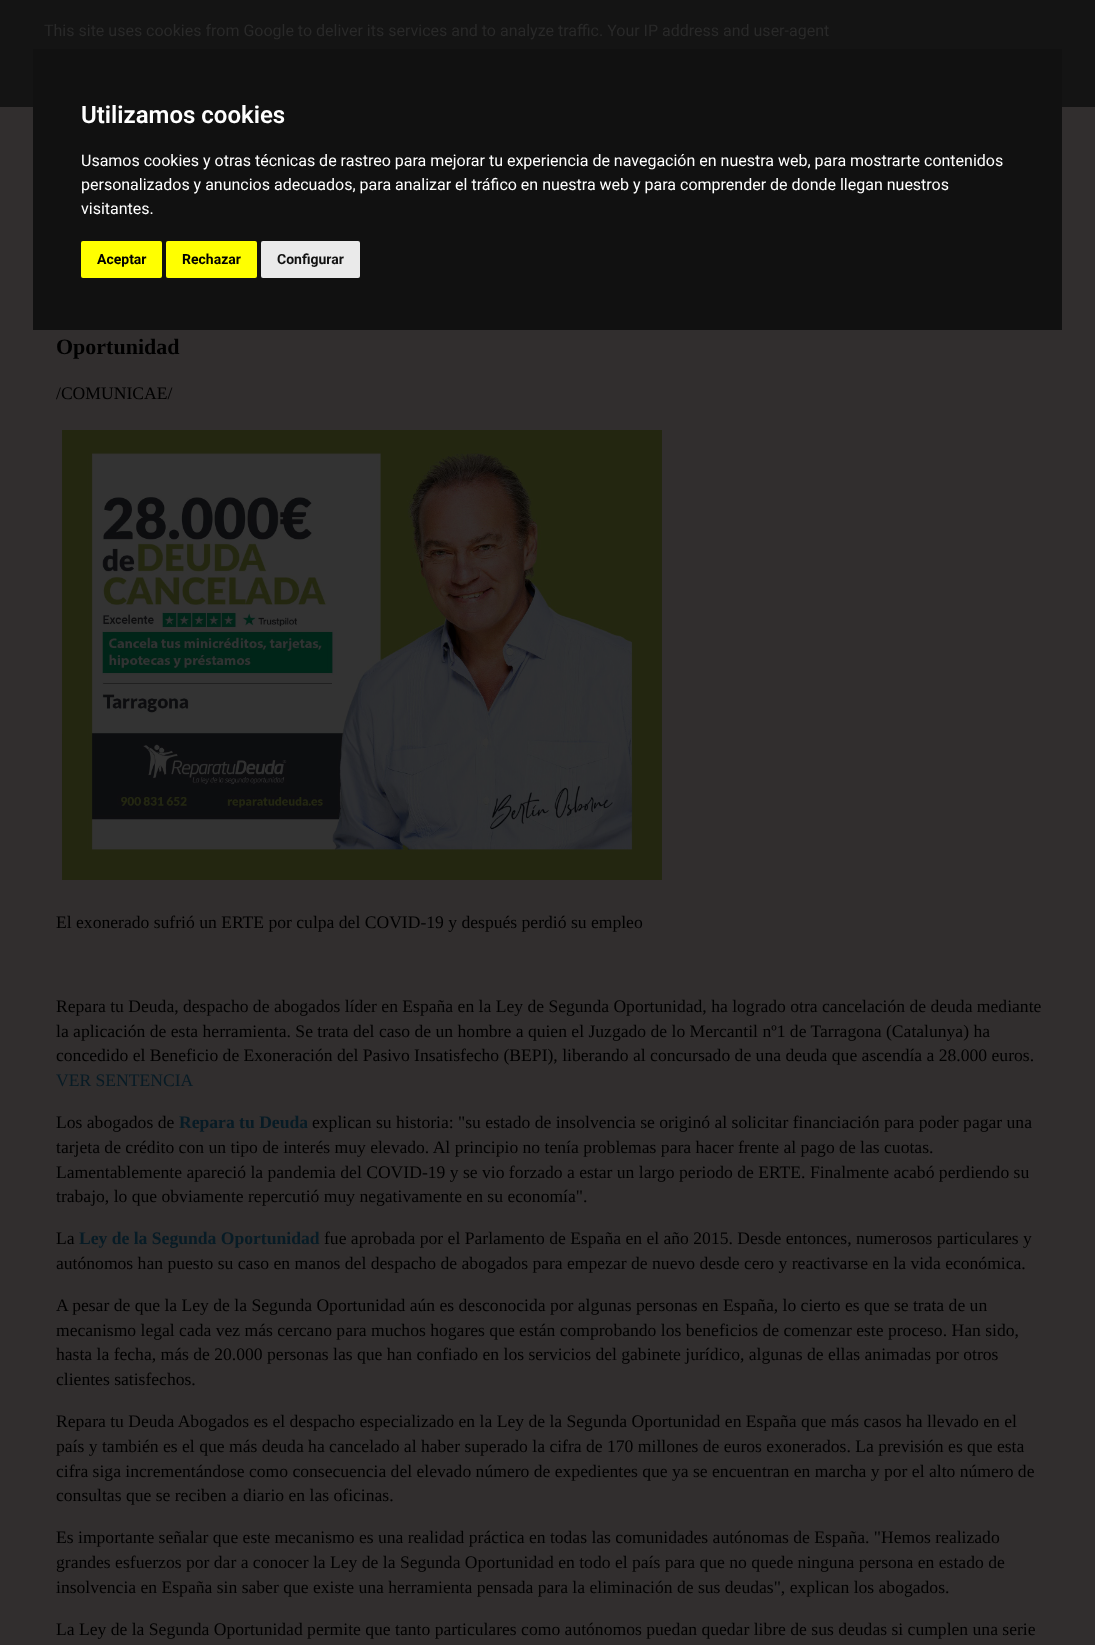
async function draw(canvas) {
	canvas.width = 1095;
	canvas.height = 1645;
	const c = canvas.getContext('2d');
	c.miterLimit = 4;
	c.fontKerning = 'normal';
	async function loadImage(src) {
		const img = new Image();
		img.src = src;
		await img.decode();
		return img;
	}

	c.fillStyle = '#312e2e';
	c.fillRect(0, 0, 1095, 1645);
	c.fillStyle = '#141414';
	c.fillRect(0, 0, 1095, 107);
	c.font = '16px Roboto';
	c.fillStyle = '#292929';
	c.fillText('This site uses cookies from Google to deliver its services and to analyze traffic. Your IP address and user-agent', 44, 36);
	c.fillStyle = '#111';
	c.fillRect(33, 49, 1029, 281);
	c.font = '600 24px Roboto';
	c.fillStyle = '#fff';
	c.fillText('Utilizamos cookies', 81, 123);
	c.font = '16px Roboto';
	for (const [text, x, y] of [
		['Usamos cookies y otras técnicas de rastreo para mejorar tu experiencia de navegación en nuestra web, para mostrarte contenidos', 81, 166],
		['personalizados y anuncios adecuados, para analizar el tráfico en nuestra web y para comprender de donde llegan nuestros', 81, 190],
		['visitantes.', 81, 214],
	]) {
		c.fillText(text, x, y);
	}
	c.fillStyle = '#ff0';
	c.beginPath();
	c.roundRect(81, 241, 81, 37, 2);
	c.fill();
	c.font = 'bold 14px Roboto';
	c.fillStyle = '#000';
	c.fillText('Aceptar', 97, 264);
	c.fillStyle = '#ff0';
	c.beginPath();
	c.roundRect(166, 241, 91, 37, 2);
	c.fill();
	c.fillStyle = '#000';
	c.fillText('Rechazar', 182, 264);
	c.fillStyle = '#eaeaea';
	c.beginPath();
	c.roundRect(261, 241, 99, 37, 2);
	c.fill();
	c.fillStyle = '#111';
	c.fillText('Configurar', 277, 264);
	c.font = 'bold 22px Liberation Serif';
	c.fillStyle = '#000';
	c.fillText('Oportunidad', 56, 354);
	c.font = '17.6px Liberation Serif';
	c.fillText('/COMUNICAE/', 56, 399);
	c.drawImage(await loadImage('img1.png'), 62, 430, 600, 450);
	for (const [text, x, y] of [
		['El exonerado sufrió un ERTE por culpa del COVID-19 y después perdió su empleo', 56, 928],
		['Repara tu Deuda, despacho de abogados líder en España en la Ley de Segunda Oportunidad, ha logrado otra cancelación de deuda mediante', 56, 1012],
		['la aplicación de esta herramienta. Se trata del caso de un hombre a quien el Juzgado de lo Mercantil nº1 de Tarragona (Catalunya) ha', 56, 1037],
		['concedido el Beneficio de Exoneración del Pasivo Insatisfecho (BEPI), liberando al concursado de una deuda que ascendía a 28.000 euros.', 56, 1061],
	]) {
		c.fillText(text, x, y);
	}
	c.fillStyle = '#071b25';
	c.fillText('VER SENTENCIA', 56, 1086);
	c.fillStyle = '#000';
	c.fillText('Los abogados de', 56, 1128);
	c.font = 'bold 17.6px Liberation Serif';
	c.fillStyle = '#071b25';
	c.fillText('Repara tu Deuda', 179, 1128);
	c.font = '17.6px Liberation Serif';
	c.fillStyle = '#000';
	for (const [text, x, y] of [
		['explican su historia: "su estado de insolvencia se originó al solicitar financiación para poder pagar una', 312, 1128],
		['tarjeta de crédito con un tipo de interés muy elevado. Al principio no tenía problemas para hacer frente al pago de las cuotas.', 56, 1153],
		['Lamentablemente apareció la pandemia del COVID-19 y se vio forzado a estar un largo periodo de ERTE. Finalmente acabó perdiendo su', 56, 1178],
		['trabajo, lo que obviamente repercutió muy negativamente en su economía".', 56, 1202],
		['La', 56, 1244],
	]) {
		c.fillText(text, x, y);
	}
	c.font = 'bold 17.6px Liberation Serif';
	c.fillStyle = '#071b25';
	c.fillText('Ley de la Segunda Oportunidad', 79, 1244);
	c.font = '17.6px Liberation Serif';
	c.fillStyle = '#000';
	for (const [text, x, y] of [
		['fue aprobada por el Parlamento de España en el año 2015. Desde entonces, numerosos particulares y', 324, 1244],
		['autónomos han puesto su caso en manos del despacho de abogados para empezar de nuevo desde cero y reactivarse en la vida económica.', 56, 1269],
		['A pesar de que la Ley de la Segunda Oportunidad aún es desconocida por algunas personas en España, lo cierto es que se trata de un', 56, 1311],
		['mecanismo legal cada vez más cercano para muchos hogares que están comprobando los beneficios de comenzar este proceso. Han sido,', 56, 1336],
		['hasta la fecha, más de 20.000 personas las que han confiado en los servicios del gabinete jurídico, algunas de ellas animadas por otros', 56, 1360],
		['clientes satisfechos.', 56, 1385],
		['Repara tu Deuda Abogados es el despacho especializado en la Ley de la Segunda Oportunidad en España que más casos ha llevado en el', 56, 1427],
		['país y también es el que más deuda ha cancelado al haber superado la cifra de 170 millones de euros exonerados. La previsión es que esta', 56, 1452],
		['cifra siga incrementándose como consecuencia del elevado número de expedientes que ya se encuentran en marcha y por el alto número de', 56, 1477],
		['consultas que se reciben a diario en las oficinas.', 56, 1501],
		['Es importante señalar que este mecanismo es una realidad práctica en todas las comunidades autónomas de España. "Hemos realizado', 56, 1543],
		['grandes esfuerzos por dar a conocer la Ley de la Segunda Oportunidad en todo el país para que no quede ninguna persona en estado de', 56, 1568],
		['insolvencia en España sin saber que existe una herramienta pensada para la eliminación de sus deudas", explican los abogados.', 56, 1593],
		['La Ley de la Segunda Oportunidad permite que tanto particulares como autónomos puedan quedar libre de sus deudas si cumplen una serie', 56, 1635],
	]) {
		c.fillText(text, x, y);
	}
}

draw(document.querySelector('canvas'));
